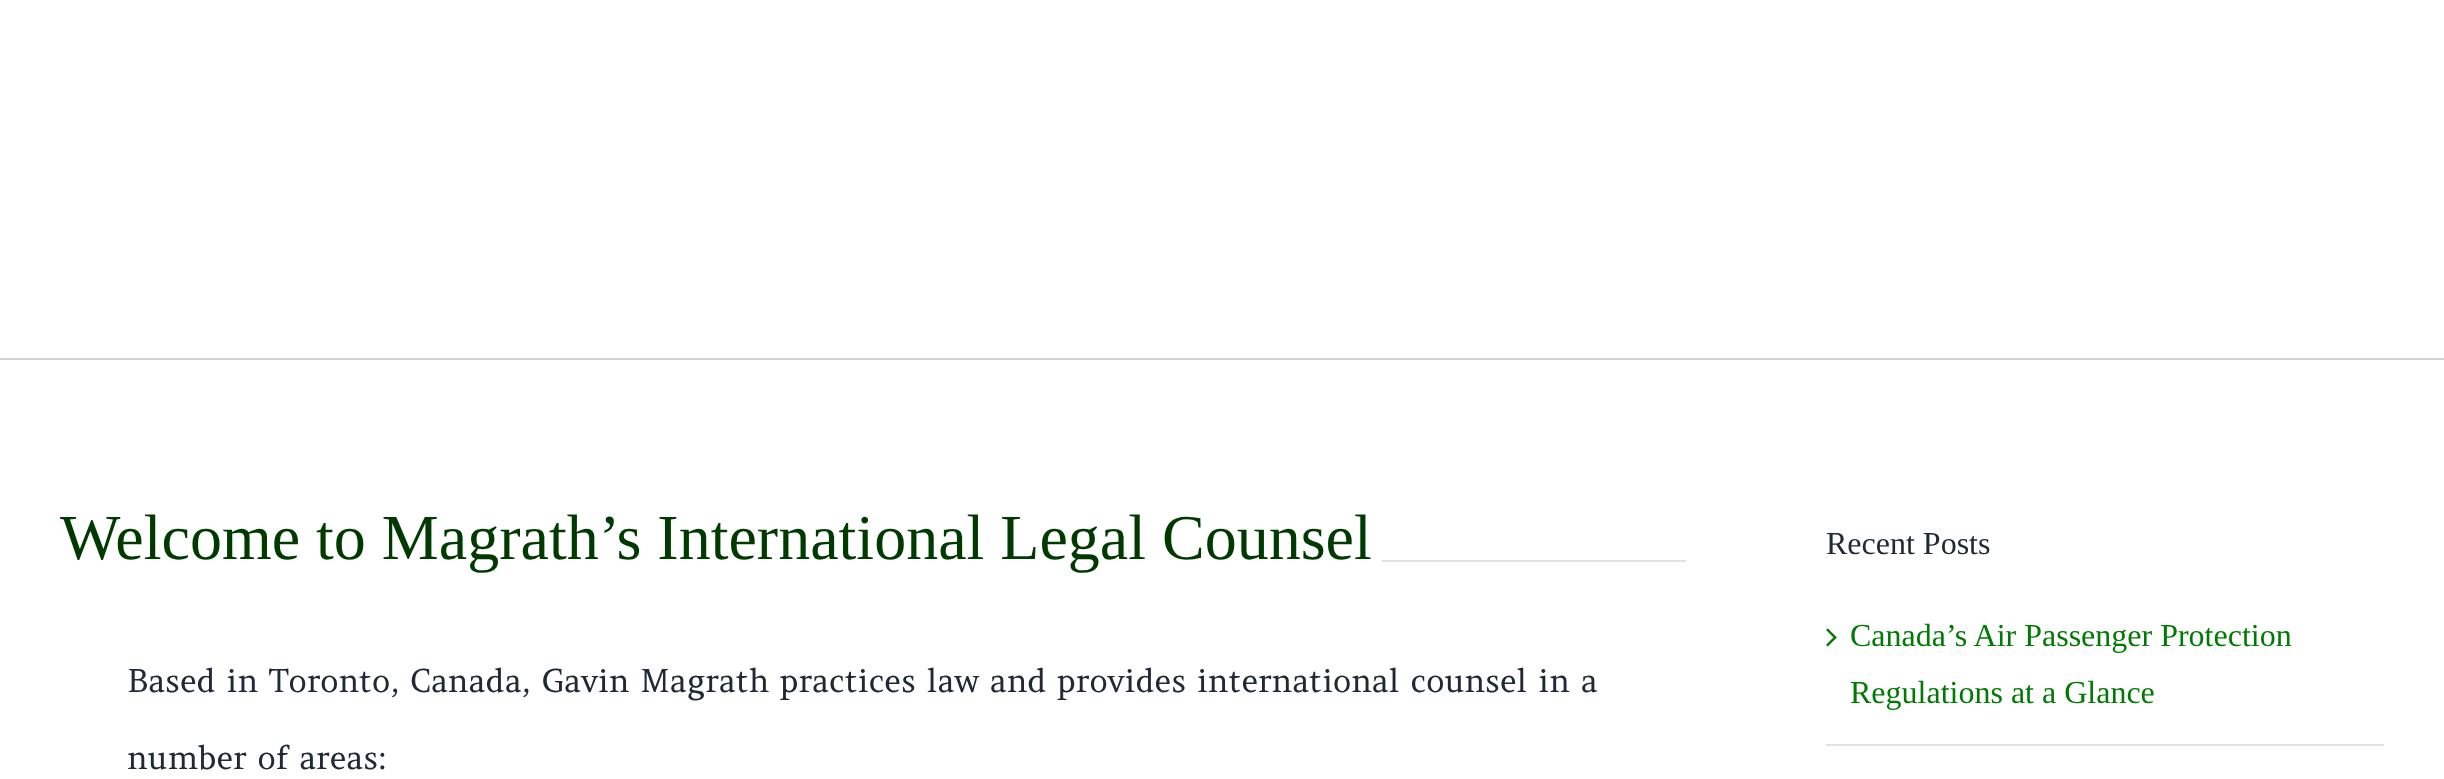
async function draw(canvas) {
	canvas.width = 2444;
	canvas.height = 779;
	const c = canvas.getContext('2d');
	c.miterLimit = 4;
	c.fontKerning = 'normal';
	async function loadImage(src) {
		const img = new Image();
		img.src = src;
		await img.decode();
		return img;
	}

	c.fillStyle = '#fff';
	c.fillRect(0, 0, 2444, 779);
	c.fillStyle = '#d2d3d4';
	c.fillRect(0, 358, 2444, 2);
	c.font = '64px Liberation Serif';
	c.fillStyle = '#003a00';
	c.fillText('Welcome to Magrath’s International Legal Counsel', 60, 559);
	c.fillStyle = '#e2e2e2';
	c.fillRect(1382, 560, 304, 2);
	c.font = '32px Amethysta';
	c.fillStyle = '#212934';
	c.fillText('Based in Toronto, Canada, Gavin Magrath practices law and provides international counsel in a', 127, 692);
	c.fillText('number of areas:', 127, 769);
	c.font = '32px Liberation Serif';
	c.fillText('Recent Posts', 1826, 554);
	c.fillStyle = '#e2e2e2';
	c.fillRect(1826, 744, 558, 2);
	c.drawImage(await loadImage('img1.png'), 1826, 628, 11, 19);
	c.fillStyle = '#007a04';
	c.fillText('Canada’s Air Passenger Protection', 1850, 646);
	c.fillText('Regulations at a Glance', 1850, 703);
}

draw(document.querySelector('canvas'));
